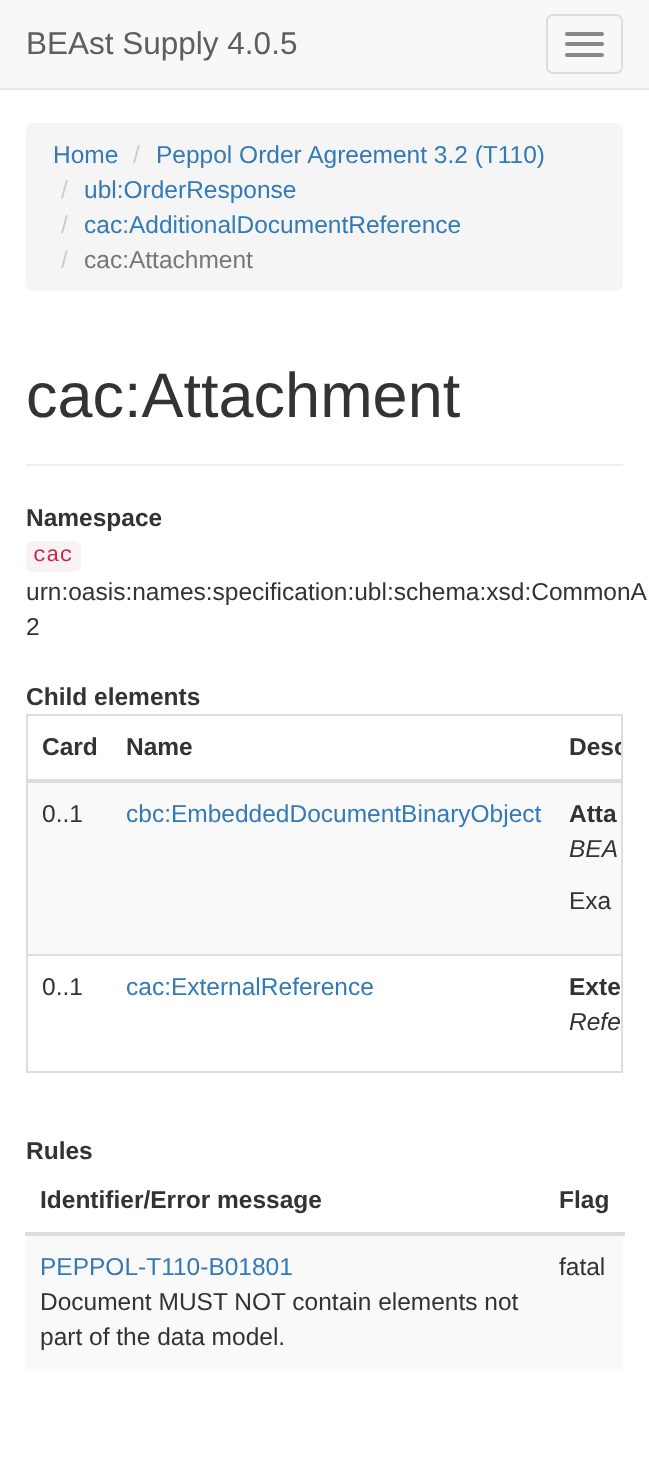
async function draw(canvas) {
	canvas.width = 649;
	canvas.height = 1459;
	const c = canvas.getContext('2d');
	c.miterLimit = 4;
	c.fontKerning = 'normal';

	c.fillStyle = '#fff';
	c.fillRect(0, 0, 649, 1459);
	c.fillStyle = '#f8f8f8';
	c.fillRect(0, 0, 649, 88);
	c.fillStyle = '#e7e7e7';
	c.fillRect(0, 88, 649, 2);
	c.font = '31.5px Liberation Sans';
	c.fillStyle = '#5e5e5e';
	c.fillText('BEAst Supply 4.0.5', 26, 54);
	c.beginPath();
	c.roundRect(547, 15, 75, 58, 6);
	c.strokeStyle = '#ddd';
	c.lineWidth = 2;
	c.stroke();
	c.fillStyle = '#888';
	c.beginPath();
	c.roundRect(565, 32, 39, 4, 2);
	c.fill();
	c.beginPath();
	c.roundRect(565, 42, 39, 4, 2);
	c.fill();
	c.beginPath();
	c.roundRect(565, 53, 39, 4, 2);
	c.fill();
	c.fillStyle = '#f5f5f5';
	c.beginPath();
	c.roundRect(26, 123, 597, 168, 7);
	c.fill();
	c.font = '24.5px Liberation Sans';
	c.fillStyle = '#337ab7';
	c.fillText('Home', 53, 163);
	c.fillStyle = '#ccc';
	c.fillText('/', 133, 163);
	c.fillStyle = '#337ab7';
	c.fillText('Peppol Order Agreement 3.2 (T110)', 156, 163);
	c.fillStyle = '#ccc';
	c.fillText('/', 61, 198);
	c.fillStyle = '#337ab7';
	c.fillText('ubl:OrderResponse', 84, 198);
	c.fillStyle = '#ccc';
	c.fillText('/', 61, 233);
	c.fillStyle = '#337ab7';
	c.fillText('cac:AdditionalDocumentReference', 84, 233);
	c.fillStyle = '#ccc';
	c.fillText('/', 61, 268);
	c.fillStyle = '#777';
	c.fillText('cac:Attachment', 84, 268);
	c.fillStyle = '#eee';
	c.fillRect(26, 464, 597, 2);
	c.font = '63px Liberation Sans';
	c.fillStyle = '#333';
	c.fillText('cac:Attachment', 26, 417);
	c.font = 'bold 24.5px Liberation Sans';
	c.fillText('Namespace', 26, 526);
	c.fillStyle = '#f9f2f4';
	c.beginPath();
	c.roundRect(26, 541, 55, 31, 7);
	c.fill();
	c.font = '22px Liberation Mono';
	c.fillStyle = '#c7254e';
	c.fillText('cac', 33, 561);
	c.font = '24.5px Liberation Sans';
	c.fillStyle = '#333';
	c.fillText('urn:oasis:names:specification:ubl:schema:xsd:CommonA', 26, 600);
	c.fillText('2', 26, 635);
	c.font = 'bold 24.5px Liberation Sans';
	c.fillText('Child elements', 26, 705);
	c.strokeRect(27, 715, 595, 357);
	c.fillText('Card', 42, 755);
	c.fillText('Name', 126, 755);
	c.fillStyle = '#ddd';
	c.fillRect(28, 779, 593, 4);
	c.save();
	c.beginPath();
	c.rect(28, 716, 593, 355);
	c.clip();
	c.fillStyle = '#333';
	c.fillText('Desc', 569, 755);
	c.restore();
	c.fillStyle = '#f9f9f9';
	c.fillRect(28, 783, 593, 171);
	c.font = '24.5px Liberation Sans';
	c.fillStyle = '#333';
	c.fillText('0..1', 42, 822);
	c.fillStyle = '#337ab7';
	c.fillText('cbc:EmbeddedDocumentBinaryObject', 126, 822);
	c.font = 'bold 24.5px Liberation Sans';
	c.fillStyle = '#333';
	c.fillText('Atta', 569, 822);
	c.font = 'italic 24.5px Liberation Sans';
	c.fillText('BEA', 569, 857);
	c.font = '24.5px Liberation Sans';
	c.fillText('Exa', 569, 909);
	c.fillText('0..1', 42, 995);
	c.fillStyle = '#337ab7';
	c.fillText('cac:ExternalReference', 126, 995);
	c.fillStyle = '#ddd';
	c.fillRect(28, 954, 593, 2);
	c.font = 'bold 24.5px Liberation Sans';
	c.fillStyle = '#333';
	c.fillText('Exte', 569, 995);
	c.font = 'italic 24.5px Liberation Sans';
	c.fillText('Refe', 569, 1030);
	c.font = 'bold 24.5px Liberation Sans';
	c.fillText('Rules', 26, 1159);
	c.fillText('Identifier/Error message', 40, 1208);
	c.fillStyle = '#ddd';
	c.fillRect(25, 1232, 600, 4);
	c.fillStyle = '#333';
	c.fillText('Flag', 559, 1208);
	c.fillStyle = '#f9f9f9';
	c.fillRect(26, 1236, 597, 133);
	c.font = '24.5px Liberation Sans';
	c.fillStyle = '#337ab7';
	c.fillText('PEPPOL-T110-B01801', 40, 1275);
	c.fillStyle = '#333';
	for (const [text, x, y] of [
		['Document MUST NOT contain elements not', 40, 1310],
		['part of the data model.', 40, 1345],
		['fatal', 559, 1275],
	]) {
		c.fillText(text, x, y);
	}
}

draw(document.querySelector('canvas'));
